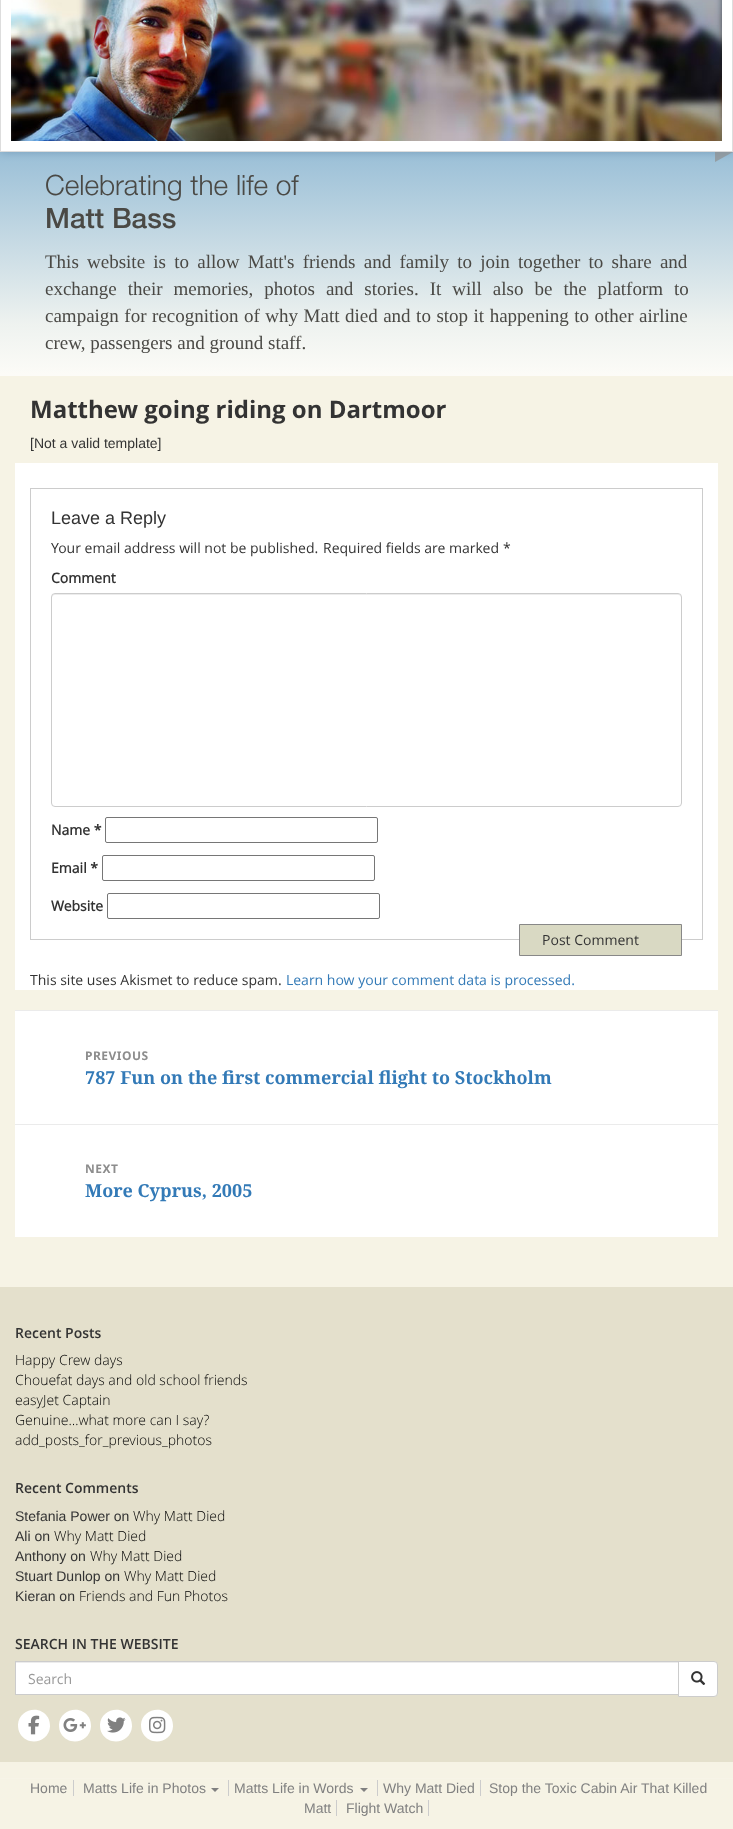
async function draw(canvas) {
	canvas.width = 733;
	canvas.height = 1829;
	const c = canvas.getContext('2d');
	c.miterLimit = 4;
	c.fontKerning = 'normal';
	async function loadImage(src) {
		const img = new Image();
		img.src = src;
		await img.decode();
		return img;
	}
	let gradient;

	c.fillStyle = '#f6f3e5';
	c.fillRect(0, 0, 733, 1829);
	c.fillStyle = '#808080';
	c.filter = 'blur(5px)';
	c.beginPath();
	c.rect(0, -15, 733, 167);
	c.fill();
	c.filter = 'none';
	c.fillStyle = '#fff';
	c.beginPath();
	c.rect(0.5, -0.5, 732, 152);
	c.fill();
	c.strokeStyle = '#ddd';
	c.stroke();
	c.drawImage(await loadImage('img1.png'), 11, 0, 711, 141);
	gradient = c.createLinearGradient(367, 152, 367, 376);
	gradient.addColorStop(0, '#73a9d1b3');
	gradient.addColorStop(0.77, '#ebf2f4b3');
	gradient.addColorStop(1, '#ffffffb3');
	c.fillStyle = gradient;
	c.fillRect(0, 152, 733, 224);
	c.fillStyle = '#8e8e8eb3';
	c.beginPath();
	c.moveTo(715, 162);
	c.lineTo(715, 152);
	c.lineTo(733, 152);
	c.closePath();
	c.fill();
	c.font = '300 28px Helvetica Neue';
	c.fillStyle = '#4a4945';
	c.fillText('Celebrating the life of', 45, 195);
	c.font = '500 28px Helvetica Neue';
	c.fillText('Matt Bass', 45, 228);
	c.wordSpacing = '3.5px';
	c.font = '19px Liberation Serif';
	c.fillText('This website is to allow Matt\'s friends and family to join together to share and', 45, 268);
	c.wordSpacing = '6.25px';
	c.fillText('exchange their memories, photos and stories. It will also be the platform to', 45, 295);
	c.wordSpacing = '0.75px';
	c.fillText('campaign for recognition of why Matt died and to stop it happening to other airline', 45, 322);
	c.wordSpacing = '0px';
	c.fillText('crew, passengers and ground staff.', 45, 349);
	c.font = 'bold 24px Open Sans';
	c.fillStyle = '#333';
	c.fillText('Matthew going riding on Dartmoor', 30, 418);
	c.font = '14px Liberation Sans';
	c.fillText('[Not a valid template]', 30, 448);
	c.fillStyle = '#fff';
	c.fillRect(15, 463, 703, 527);
	c.strokeStyle = '#ccc';
	c.strokeRect(30.5, 488.5, 672, 451);
	c.font = '18px Liberation Sans';
	c.fillStyle = '#333';
	c.fillText('Leave a Reply', 51, 524);
	c.font = '14px Open Sans';
	for (const [text, x, y] of [
		['Your email address will not be published.', 51, 553],
		['Required fields are marked', 323, 553],
		['*', 503, 553],
	]) {
		c.fillText(text, x, y);
	}
	c.font = 'bold 14px "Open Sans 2"';
	c.fillText('Comment', 51, 583);
	c.fillStyle = '#ececec';
	c.beginPath();
	c.moveTo(55, 595);
	c.lineTo(678, 595);
	c.bezierCurveTo(680, 595, 681, 596, 681, 598);
	c.lineTo(681, 597);
	c.bezierCurveTo(681, 595, 680, 594, 678, 594);
	c.lineTo(55, 594);
	c.bezierCurveTo(53, 594, 52, 595, 52, 597);
	c.lineTo(52, 598);
	c.bezierCurveTo(52, 596, 53, 595, 55, 595);
	c.closePath();
	c.fill();
	c.beginPath();
	c.roundRect(51.5, 593.5, 630, 213, 3.5);
	c.stroke();
	c.fillStyle = '#333';
	c.fillText('Name *', 51, 835);
	c.beginPath();
	c.roundRect(105.5, 817.5, 272, 25, 1.5);
	c.strokeStyle = '#767676';
	c.stroke();
	c.fillText('Email *', 51, 873);
	c.beginPath();
	c.roundRect(102.5, 855.5, 272, 25, 1.5);
	c.stroke();
	c.fillText('Website', 51, 911);
	c.beginPath();
	c.roundRect(107.5, 893.5, 272, 25, 1.5);
	c.stroke();
	c.fillStyle = '#d9d9c3';
	c.beginPath();
	c.rect(519.5, 924.5, 162, 31);
	c.fill();
	c.strokeStyle = '#888';
	c.stroke();
	c.font = '14px Open Sans';
	c.fillStyle = '#333';
	c.fillText('Post Comment', 542, 945);
	c.fillText('This site uses Akismet to reduce spam.', 30, 985);
	c.fillStyle = '#337ab7';
	c.fillText('Learn how your comment data is processed.', 286, 985);
	c.fillStyle = '#fff';
	c.fillRect(15, 1011, 703, 226);
	c.fillStyle = '#ebebeb';
	c.fillRect(15, 1010, 703, 1);
	c.letterSpacing = '0.5px';
	c.font = 'bold 12px Noto Sans';
	c.fillStyle = '#8d8d8d';
	c.fillText('PREVIOUS', 85, 1060);
	c.letterSpacing = '0px';
	c.font = 'bold 18px Noto Serif';
	c.fillStyle = '#337ab7';
	c.fillText('787 Fun on the first commercial flight to Stockholm', 85, 1084);
	c.fillStyle = '#ebebeb';
	c.fillRect(15, 1124, 703, 1);
	c.letterSpacing = '0.5px';
	c.font = 'bold 12px Noto Sans';
	c.fillStyle = '#8d8d8d';
	c.fillText('NEXT', 85, 1173);
	c.letterSpacing = '0px';
	c.font = 'bold 18px Noto Serif';
	c.fillStyle = '#337ab7';
	c.fillText('More Cyprus, 2005', 85, 1197);
	c.fillStyle = '#e4e0cc';
	c.fillRect(0, 1287, 733, 475);
	c.font = '600 14px Open Sans';
	c.fillStyle = '#333';
	c.fillText('Recent Posts', 15, 1338);
	c.font = '300 14px Open Sans';
	c.fillStyle = '#000';
	for (const [text, x, y] of [
		['Happy Crew days', 15, 1365],
		['Chouefat days and old school friends', 15, 1385],
		['easyJet Captain', 15, 1405],
		['Genuine…what more can I say?', 15, 1425],
		['add_posts_for_previous_photos', 15, 1445],
	]) {
		c.fillText(text, x, y);
	}
	c.font = '600 14px Open Sans';
	c.fillStyle = '#333';
	c.fillText('Recent Comments', 15, 1493);
	c.font = '14px Liberation Sans';
	c.fillText('Stefania Power on', 15, 1521);
	c.font = '300 14px Open Sans';
	c.fillStyle = '#000';
	c.fillText('Why Matt Died', 133, 1521);
	c.font = '14px Liberation Sans';
	c.fillStyle = '#333';
	c.fillText('Ali on', 15, 1541);
	c.font = '300 14px Open Sans';
	c.fillStyle = '#000';
	c.fillText('Why Matt Died', 54, 1541);
	c.font = '14px Liberation Sans';
	c.fillStyle = '#333';
	c.fillText('Anthony on', 15, 1561);
	c.font = '300 14px Open Sans';
	c.fillStyle = '#000';
	c.fillText('Why Matt Died', 90, 1561);
	c.font = '14px Liberation Sans';
	c.fillStyle = '#333';
	c.fillText('Stuart Dunlop on', 15, 1581);
	c.font = '300 14px Open Sans';
	c.fillStyle = '#000';
	c.fillText('Why Matt Died', 124, 1581);
	c.font = '14px Liberation Sans';
	c.fillStyle = '#333';
	c.fillText('Kieran on', 15, 1601);
	c.font = '300 14px Open Sans';
	c.fillStyle = '#000';
	c.fillText('Friends and Fun Photos', 79, 1601);
	c.font = '600 14px Open Sans';
	c.fillStyle = '#333';
	c.fillText('SEARCH IN THE WEBSITE', 15, 1649);
	c.fillStyle = '#fff';
	c.fillRect(16, 1663, 662, 31);
	c.fillStyle = '#ececec';
	c.fillRect(16, 1662, 662, 1);
	c.fillStyle = '#fff';
	c.beginPath();
	c.roundRect(678.5, 1661.5, 39, 35, [0, 3.5, 3.5, 0]);
	c.fill();
	c.strokeStyle = '#ccc';
	c.stroke();
	c.strokeRect(15.5, 1661.5, 663, 33);
	c.font = '14px Open Sans';
	c.fillStyle = '#999';
	c.fillText('Search', 28, 1684);
	c.drawImage(await loadImage('img2.png'), 691, 1671, 15, 14);
	c.fillStyle = '#fff';
	c.beginPath();
	c.moveTo(48, 1717.5);
	c.bezierCurveTo(49.5, 1720.5, 50, 1723.5, 50, 1726.5);
	c.bezierCurveTo(49, 1742.5, 28, 1747, 20, 1733.5);
	c.bezierCurveTo(18.5, 1731, 18, 1728, 18, 1724.5);
	c.bezierCurveTo(19, 1709, 40, 1704, 48, 1717.5);
	c.closePath();
	c.fill();
	c.drawImage(await loadImage('img3.png'), 28, 1715, 12, 20);
	c.beginPath();
	c.moveTo(89, 1717.5);
	c.bezierCurveTo(90.5, 1720.5, 91, 1723.5, 91, 1726.5);
	c.bezierCurveTo(90, 1742.5, 69, 1747, 61, 1733.5);
	c.bezierCurveTo(59.5, 1731, 59, 1728, 59, 1724.5);
	c.bezierCurveTo(60, 1709, 81, 1704, 89, 1717.5);
	c.closePath();
	c.fill();
	c.drawImage(await loadImage('img4.png'), 63, 1718, 23, 14);
	c.beginPath();
	c.moveTo(130, 1717.5);
	c.bezierCurveTo(131.5, 1720.5, 132, 1723.5, 132, 1726.5);
	c.bezierCurveTo(131, 1742.5, 110, 1747, 102, 1733.5);
	c.bezierCurveTo(100.5, 1731, 100, 1728, 100, 1724.5);
	c.bezierCurveTo(101, 1709, 122, 1704, 130, 1717.5);
	c.closePath();
	c.fill();
	c.drawImage(await loadImage('img5.png'), 107, 1717, 19, 16);
	c.beginPath();
	c.moveTo(171, 1717.5);
	c.bezierCurveTo(172.5, 1720.5, 173, 1723.5, 173, 1726.5);
	c.bezierCurveTo(172, 1742.5, 151, 1747, 143, 1733.5);
	c.bezierCurveTo(141.5, 1731, 141, 1728, 141, 1724.5);
	c.bezierCurveTo(142, 1709, 163, 1704, 171, 1717.5);
	c.closePath();
	c.fill();
	c.drawImage(await loadImage('img6.png'), 149, 1716, 17, 18);
	c.fillStyle = '#f7f4e8';
	c.fillRect(0, 1778, 733, 1);
	c.font = '14px Liberation Sans';
	c.fillStyle = '#808080';
	c.fillText('Home', 30, 1793);
	c.fillStyle = '#ccc';
	c.fillRect(73, 1780, 1, 16);
	c.fillRect(228, 1780, 1, 16);
	c.fillStyle = '#808080';
	c.fillText('Matts Life in Photos', 83, 1793);
	c.beginPath();
	c.moveTo(211, 1788);
	c.lineTo(219, 1788);
	c.lineTo(215, 1792);
	c.closePath();
	c.fill();
	c.fillStyle = '#ccc';
	c.fillRect(377, 1780, 1, 16);
	c.fillStyle = '#808080';
	c.fillText('Matts Life in Words', 234, 1793);
	c.beginPath();
	c.moveTo(360, 1788);
	c.lineTo(368, 1788);
	c.lineTo(364, 1792);
	c.closePath();
	c.fill();
	c.fillText('Why Matt Died', 383, 1793);
	c.fillStyle = '#ccc';
	c.fillRect(480, 1780, 1, 16);
	c.fillStyle = '#808080';
	c.fillText('Stop the Toxic Cabin Air That Killed', 489, 1793);
	c.fillText('Matt', 304, 1813);
	c.fillStyle = '#ccc';
	c.fillRect(336, 1800, 1, 16);
	c.fillStyle = '#808080';
	c.fillText('Flight Watch', 346, 1813);
	c.fillStyle = '#ccc';
	c.fillRect(428, 1800, 1, 16);
}

draw(document.querySelector('canvas'));
